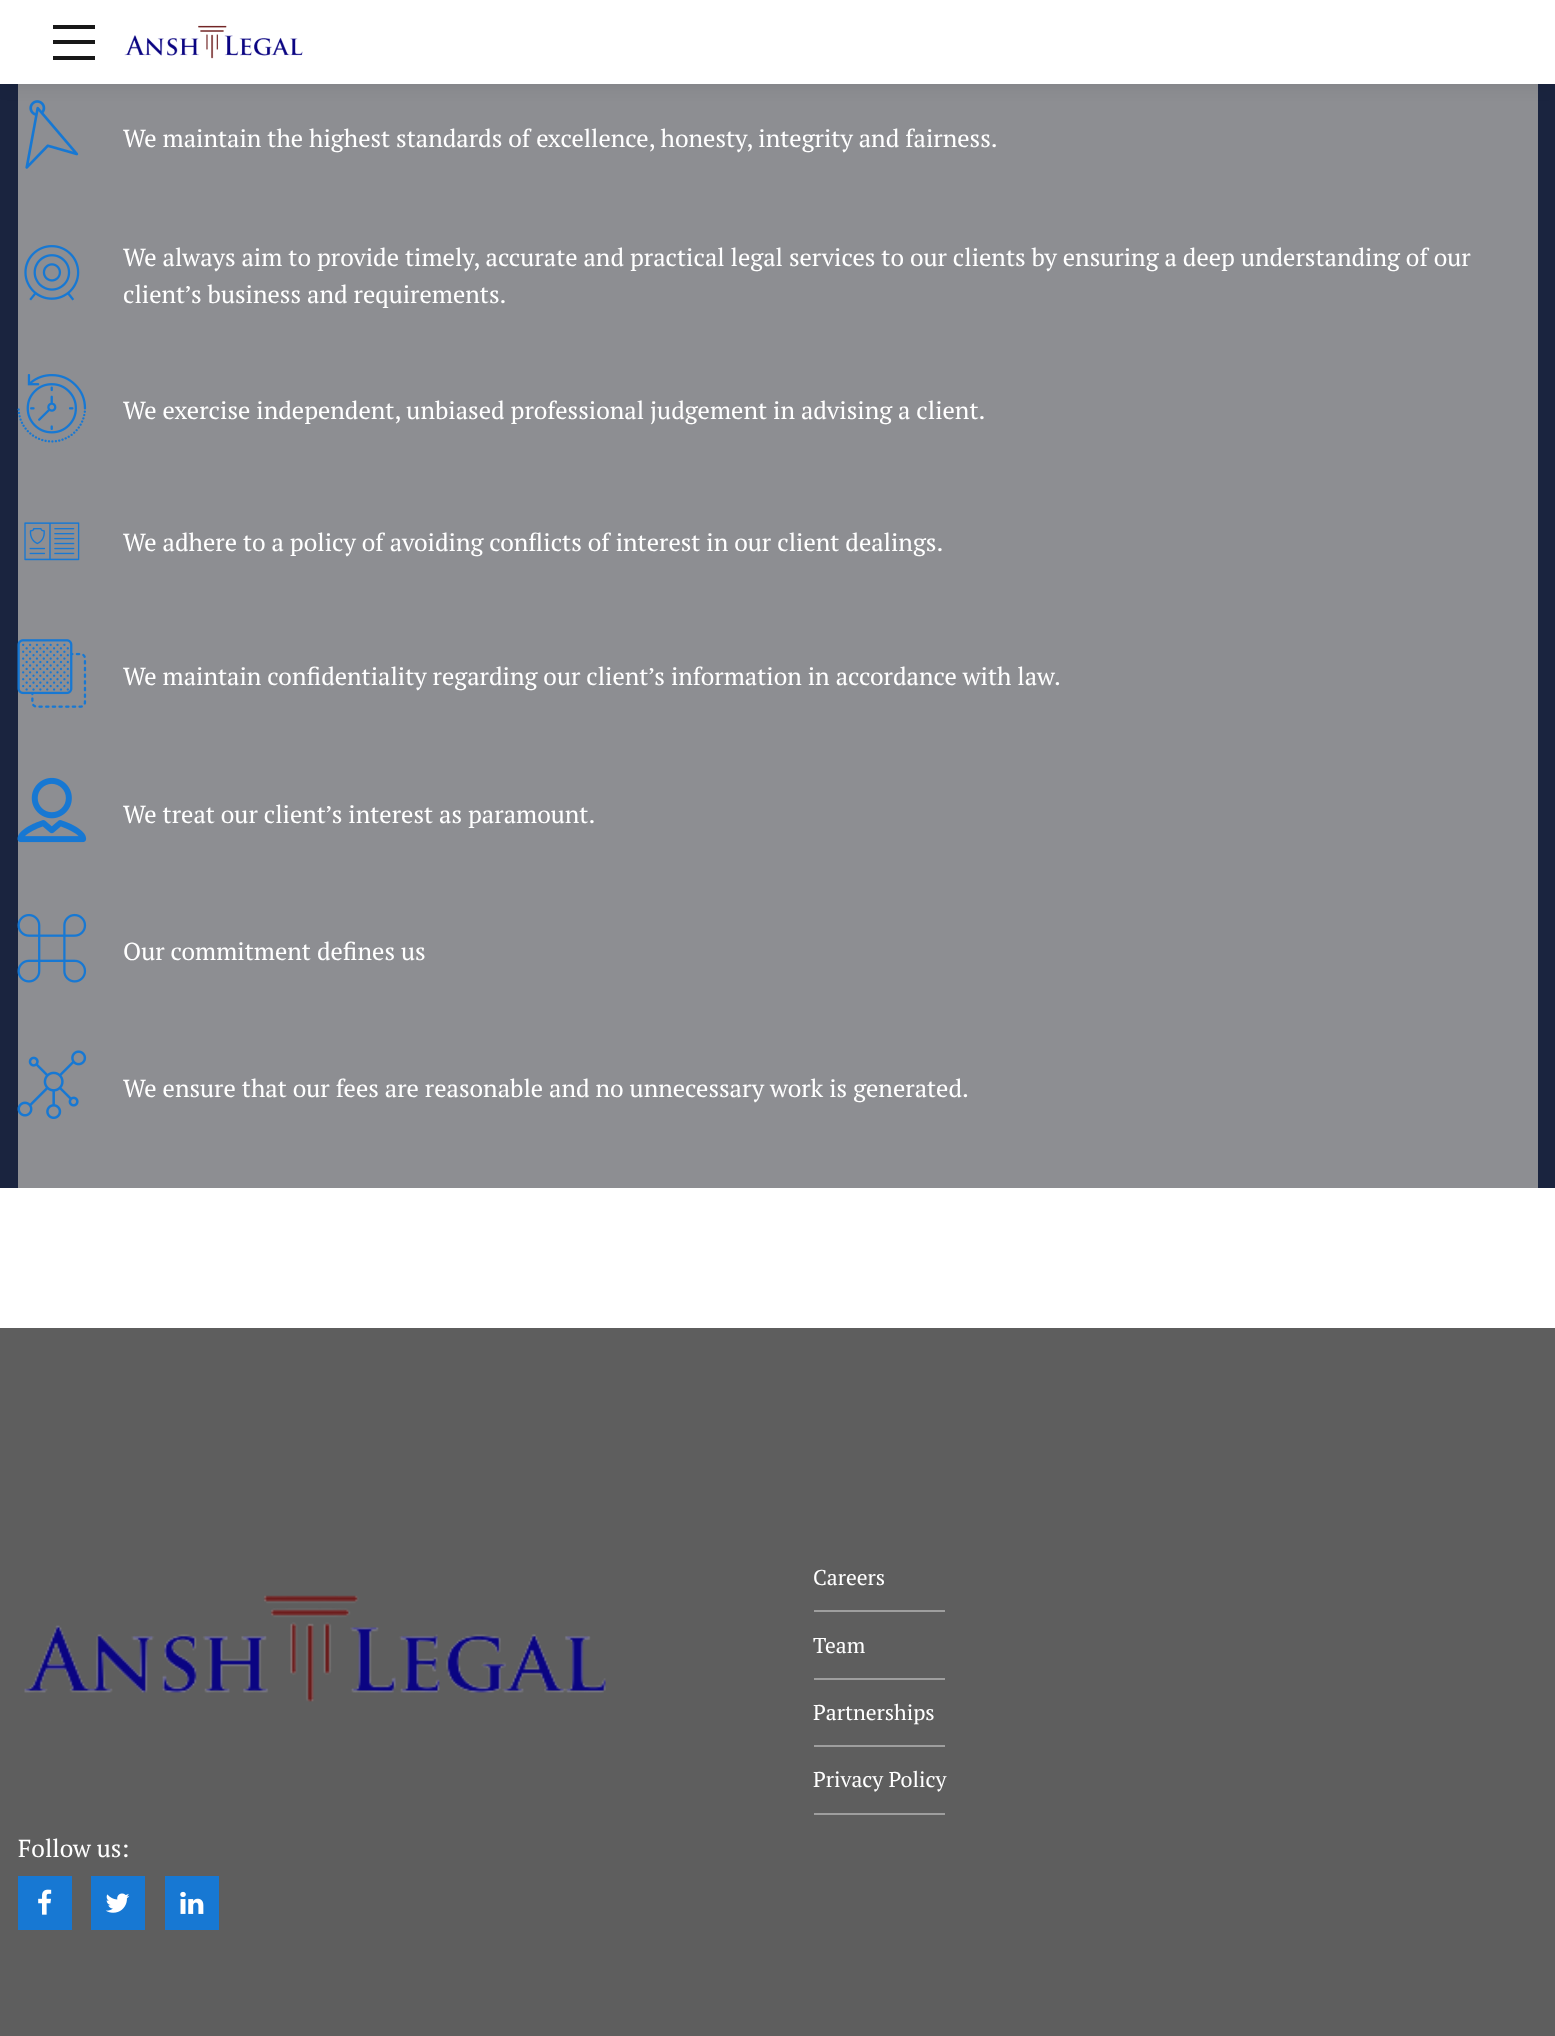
async function draw(canvas) {
	canvas.width = 1555;
	canvas.height = 2036;
	const c = canvas.getContext('2d');
	c.miterLimit = 4;
	c.fontKerning = 'normal';
	async function loadImage(src) {
		const img = new Image();
		img.src = src;
		await img.decode();
		return img;
	}

	c.fillStyle = '#fff';
	c.fillRect(0, 0, 1555, 2036);
	c.fillStyle = '#1a243f';
	c.fillRect(0, 84, 1555, 1104);
	c.fillStyle = '#8d8e92';
	c.fillRect(18, 84, 1520, 1104);
	c.drawImage(await loadImage('img2.png'), 25, 100, 54, 69);
	c.fillStyle = '#0000001a';
	c.filter = 'blur(9px)';
	c.beginPath();
	c.rect(0, 0, 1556, 84);
	c.fill();
	c.filter = 'none';
	for (const [x, y, w, h, color] of [
		[0, 0, 1555, 84, '#fff'],
		[53, 25, 42, 4, '#181818'],
		[53, 40, 42, 4, '#181818'],
		[53, 56, 42, 4, '#181818'],
	]) {
		c.fillStyle = color;
		c.fillRect(x, y, w, h);
	}
	c.drawImage(await loadImage('img1.png'), 124, 25, 179, 34);
	c.font = '24.5px PT Serif';
	c.fillStyle = '#fff';
	c.fillText('We maintain the highest standards of excellence, honesty, integrity and fairness.', 123, 147);
	c.drawImage(await loadImage('img3.png'), 24, 245, 56, 56);
	c.fillText('We always aim to provide timely, accurate and practical legal services to our clients by ensuring a deep understanding of our', 123, 266);
	c.fillText('client’s business and requirements.', 123, 303);
	c.drawImage(await loadImage('img4.png'), 17, 374, 70, 69);
	c.fillText('We exercise independent, unbiased professional judgement in advising a client.', 123, 419);
	c.drawImage(await loadImage('img5.png'), 24, 522, 56, 39);
	c.fillText('We adhere to a policy of avoiding conflicts of interest in our client dealings.', 123, 551);
	c.drawImage(await loadImage('img6.png'), 17, 639, 70, 69);
	c.fillText('We maintain confidentiality regarding our client’s information in accordance with law.', 123, 685);
	c.drawImage(await loadImage('img7.png'), 17, 777, 70, 66);
	c.fillText('We treat our client’s interest as paramount.', 123, 823);
	c.drawImage(await loadImage('img8.png'), 17, 913, 70, 70);
	c.fillText('Our commitment defines us', 123, 960);
	c.drawImage(await loadImage('img9.png'), 17, 1050, 70, 69);
	c.fillText('We ensure that our fees are reasonable and no unnecessary work is generated.', 123, 1097);
	c.fillStyle = '#5e5e5e';
	c.fillRect(0, 1328, 1555, 708);
	c.fillStyle = '#9e9e9e';
	c.fillRect(814, 1610, 131, 2);
	c.font = '21.5px PT Serif';
	c.fillStyle = '#fff';
	c.fillText('Careers', 813, 1585);
	c.fillStyle = '#9e9e9e';
	c.fillRect(814, 1678, 131, 2);
	c.fillStyle = '#fff';
	c.fillText('Team', 813, 1653);
	c.fillStyle = '#9e9e9e';
	c.fillRect(814, 1745, 131, 2);
	c.fillStyle = '#fff';
	c.fillText('Partnerships', 813, 1720);
	c.fillStyle = '#9e9e9e';
	c.fillRect(814, 1813, 131, 2);
	c.fillStyle = '#fff';
	c.fillText('Privacy Policy', 813, 1787);
	c.drawImage(await loadImage('img10.png'), 24, 1595, 582, 107);
	c.font = '24.5px PT Serif';
	c.fillText('Follow us:', 18, 1857);
	c.fillStyle = '#1778d3';
	c.fillRect(18, 1876, 54, 54);
	c.drawImage(await loadImage('img11.png'), 38, 1889, 14, 26);
	c.fillRect(91, 1876, 54, 54);
	c.drawImage(await loadImage('img12.png'), 105, 1893, 25, 20);
	c.fillRect(165, 1876, 54, 54);
	c.drawImage(await loadImage('img13.png'), 180, 1891, 24, 23);
}

draw(document.querySelector('canvas'));
